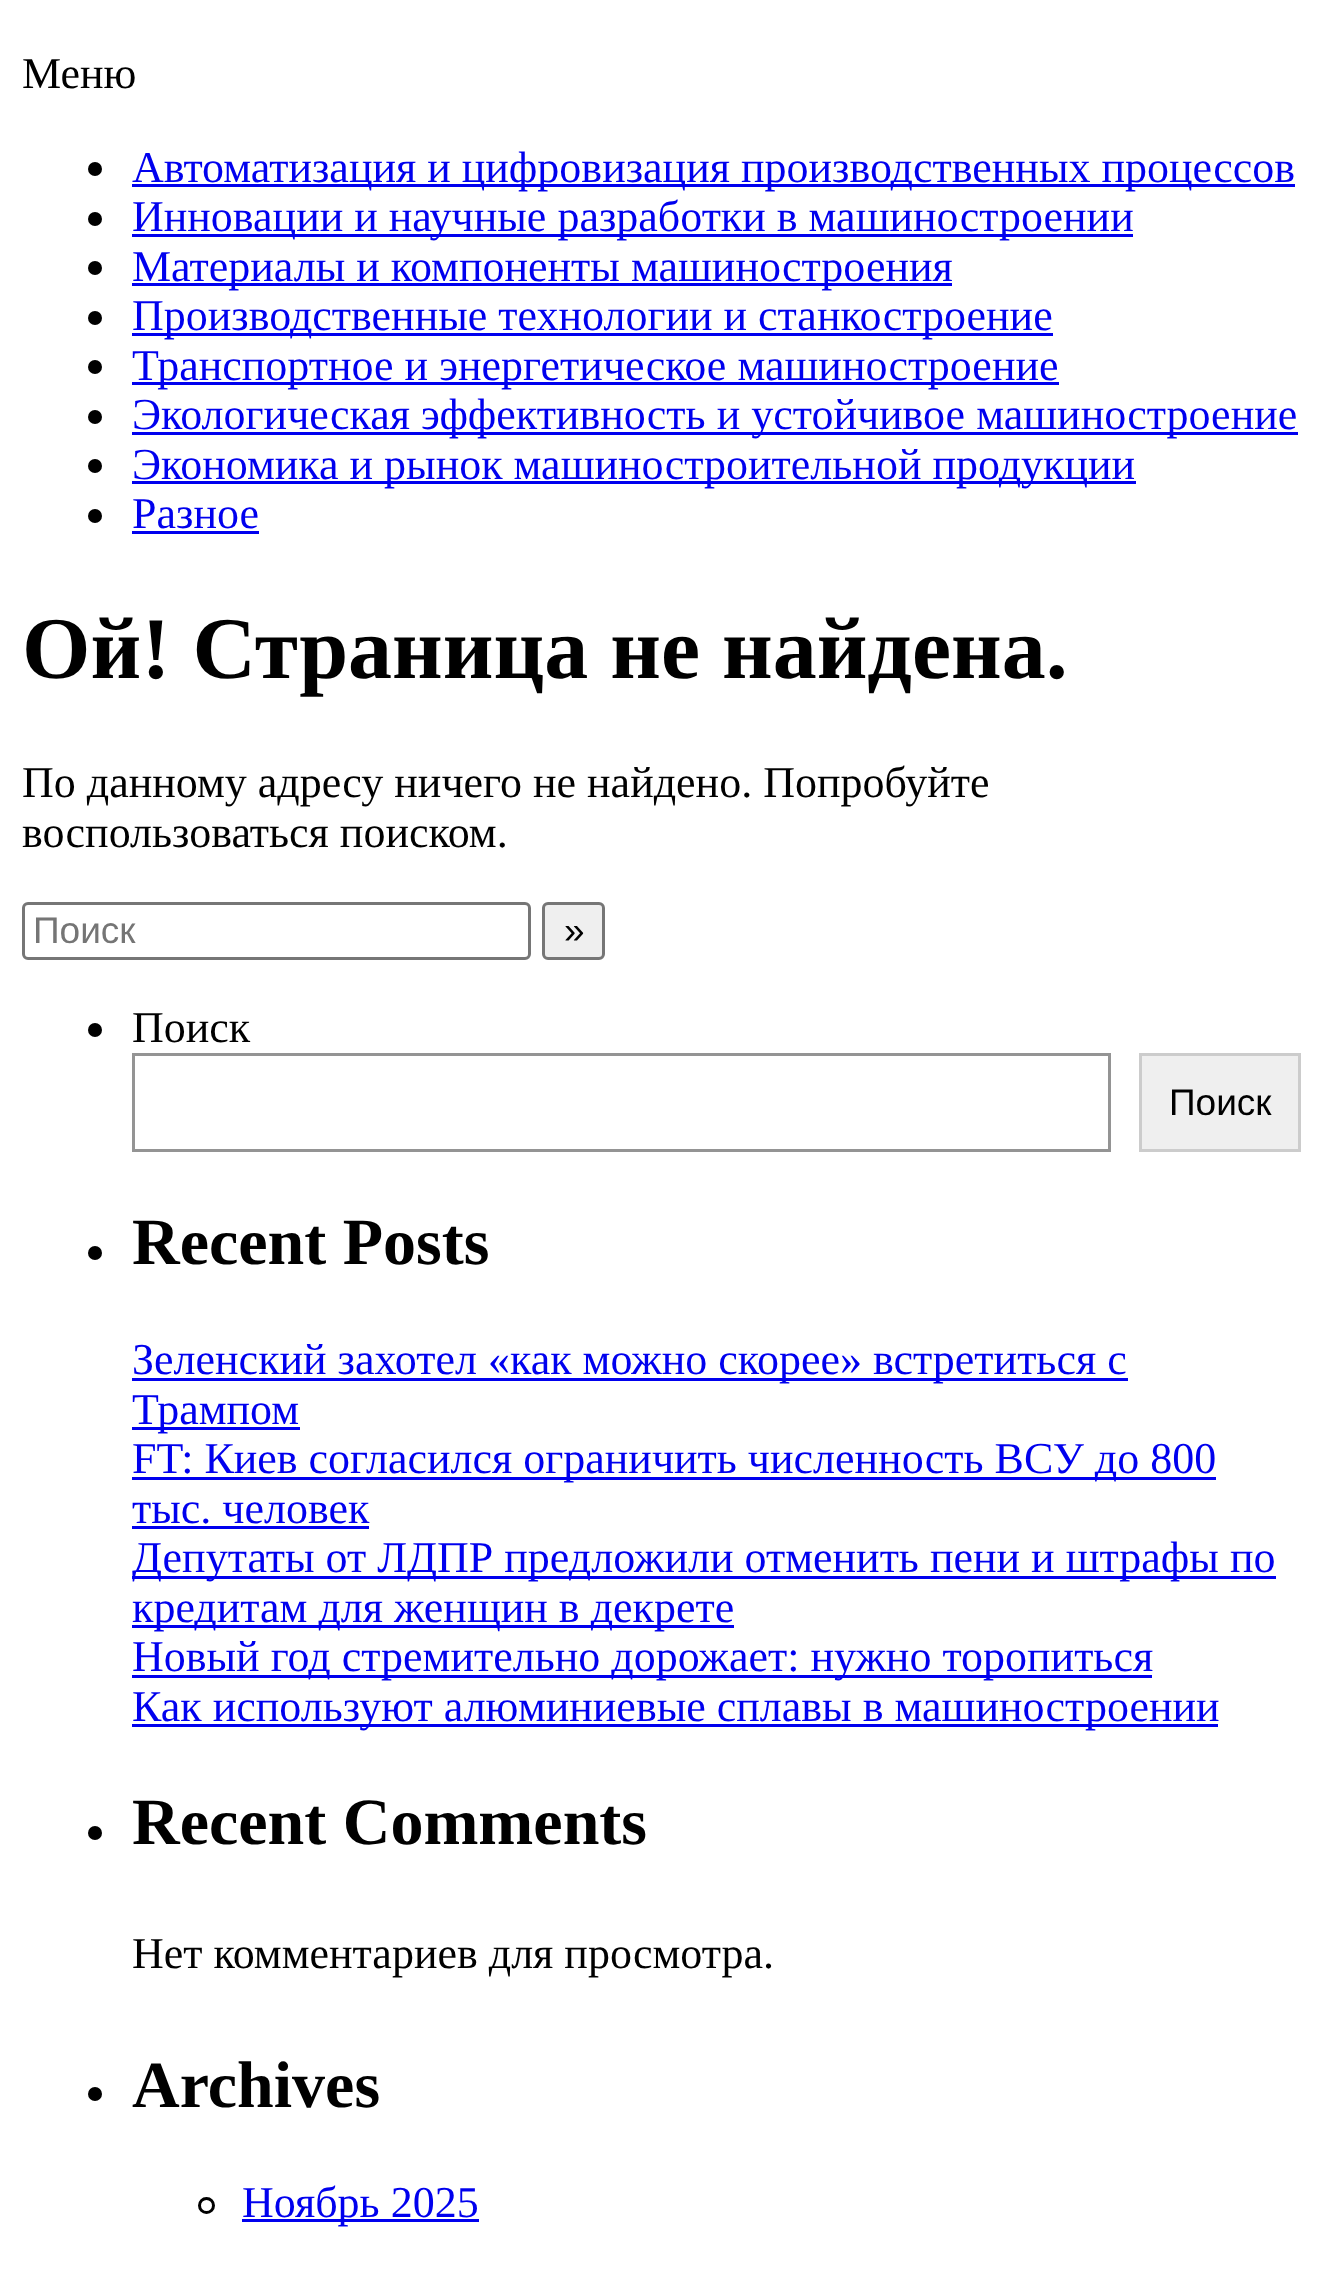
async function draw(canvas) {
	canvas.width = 1322;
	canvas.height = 2292;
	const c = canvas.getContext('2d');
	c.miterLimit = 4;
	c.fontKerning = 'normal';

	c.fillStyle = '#fff';
	c.fillRect(0, 0, 1322, 2292);
	c.font = '44px Liberation Serif';
	c.fillStyle = '#000';
	c.fillText('Меню', 22, 88);
	c.beginPath();
	c.arc(95, 169, 7, 0, 2 * Math.PI);
	c.fill();
	c.fillStyle = '#00e';
	c.fillRect(132, 184, 1163, 3);
	c.fillText('Автоматизация и цифровизация производственных процессов', 132, 182);
	c.fillStyle = '#000';
	c.beginPath();
	c.arc(95, 219, 7, 0, 2 * Math.PI);
	c.fill();
	c.fillStyle = '#00e';
	c.fillRect(132, 234, 1001, 3);
	c.fillText('Инновации и научные разработки в машиностроении', 132, 231);
	c.fillStyle = '#000';
	c.beginPath();
	c.arc(95, 268, 7, 0, 2 * Math.PI);
	c.fill();
	c.fillStyle = '#00e';
	c.fillRect(132, 283, 820, 3);
	c.fillText('Материалы и компоненты машиностроения', 132, 281);
	c.fillStyle = '#000';
	c.beginPath();
	c.arc(95, 318, 7, 0, 2 * Math.PI);
	c.fill();
	c.fillStyle = '#00e';
	c.fillRect(132, 333, 921, 3);
	c.fillText('Производственные технологии и станкостроение', 132, 330);
	c.fillStyle = '#000';
	c.beginPath();
	c.arc(95, 367, 7, 0, 2 * Math.PI);
	c.fill();
	c.fillStyle = '#00e';
	c.fillRect(132, 382, 927, 3);
	c.fillText('Транспортное и энергетическое машиностроение', 132, 380);
	c.fillStyle = '#000';
	c.beginPath();
	c.arc(95, 417, 7, 0, 2 * Math.PI);
	c.fill();
	c.fillStyle = '#00e';
	c.fillRect(132, 432, 1166, 3);
	c.fillText('Экологическая эффективность и устойчивое машиностроение', 132, 429);
	c.fillStyle = '#000';
	c.beginPath();
	c.arc(95, 466, 7, 0, 2 * Math.PI);
	c.fill();
	c.fillStyle = '#00e';
	c.fillRect(132, 481, 1004, 3);
	c.fillText('Экономика и рынок машиностроительной продукции', 132, 479);
	c.fillStyle = '#000';
	c.beginPath();
	c.arc(95, 516, 7, 0, 2 * Math.PI);
	c.fill();
	c.fillStyle = '#00e';
	c.fillText('Разное', 132, 528);
	c.fillRect(132, 531, 127, 3);
	c.font = 'bold 88px Liberation Serif';
	c.fillStyle = '#000';
	c.fillText('Ой! Страница не найдена.', 22, 678);
	c.font = '44px Liberation Serif';
	c.fillText('По данному адресу ничего не найдено. Попробуйте', 22, 797);
	c.fillText('воспользоваться поиском.', 22, 847);
	c.beginPath();
	c.roundRect(23.5, 903.5, 506, 55, 4.5);
	c.strokeStyle = '#767676';
	c.lineWidth = 3;
	c.stroke();
	c.font = '37px Liberation Sans';
	c.fillStyle = '#757575';
	c.fillText('Поиск', 33, 943);
	c.fillStyle = '#efefef';
	c.beginPath();
	c.roundRect(543.5, 903.5, 60, 55, 4.5);
	c.fill();
	c.stroke();
	c.fillStyle = '#000';
	c.fillText('»', 564, 943);
	c.beginPath();
	c.arc(95, 1030, 7, 0, 2 * Math.PI);
	c.fill();
	c.font = '44px Liberation Serif';
	c.fillText('Поиск', 132, 1042);
	c.strokeStyle = '#949494';
	c.strokeRect(133.5, 1054.5, 976, 96);
	c.fillStyle = '#efefef';
	c.beginPath();
	c.rect(1140.5, 1054.5, 159, 96);
	c.fill();
	c.strokeStyle = '#ccc';
	c.stroke();
	c.font = '37px Liberation Sans';
	c.fillStyle = '#000';
	c.fillText('Поиск', 1169, 1115);
	c.beginPath();
	c.arc(95, 1253, 7, 0, 2 * Math.PI);
	c.fill();
	c.font = 'bold 66px Liberation Serif';
	c.fillText('Recent Posts', 132, 1264);
	c.fillStyle = '#00e';
	c.fillRect(132, 1378, 996, 3);
	c.font = '44px Liberation Serif';
	c.fillText('Зеленский захотел «как можно скорее» встретиться с', 132, 1374);
	c.fillRect(132, 1427, 168, 3);
	c.fillText('Трампом', 132, 1424);
	c.fillRect(132, 1477, 1084, 3);
	c.fillText('FT: Киев согласился ограничить численность ВСУ до 800', 132, 1473);
	c.fillText('тыс. человек', 132, 1523);
	c.fillRect(132, 1526, 237, 3);
	c.fillRect(132, 1576, 1144, 3);
	c.fillText('Депутаты от ЛДПР предложили отменить пени и штрафы по', 132, 1572);
	c.fillRect(132, 1625, 602, 3);
	c.fillText('кредитам для женщин в декрете', 132, 1622);
	c.fillRect(132, 1675, 1020, 3);
	c.fillText('Новый год стремительно дорожает: нужно торопиться', 132, 1671);
	c.fillRect(132, 1724, 1086, 3);
	c.fillText('Как используют алюминиевые сплавы в машиностроении', 132, 1721);
	c.fillStyle = '#000';
	c.beginPath();
	c.arc(95, 1833, 7, 0, 2 * Math.PI);
	c.fill();
	c.font = 'bold 66px Liberation Serif';
	c.fillText('Recent Comments', 132, 1844);
	c.font = '44px Liberation Serif';
	c.fillText('Нет комментариев для просмотра.', 132, 1968);
	c.beginPath();
	c.arc(95, 2094, 7, 0, 2 * Math.PI);
	c.fill();
	c.font = 'bold 66px Liberation Serif';
	c.fillText('Archives', 132, 2107);
	c.beginPath();
	c.arc(206.5, 2205.5, 7, 0, 2 * Math.PI);
	c.strokeStyle = '#000';
	c.stroke();
	c.fillStyle = '#00e';
	c.fillRect(242, 2219, 237, 3);
	c.font = '44px Liberation Serif';
	c.fillText('Ноябрь 2025', 242, 2217);
}

draw(document.querySelector('canvas'));
